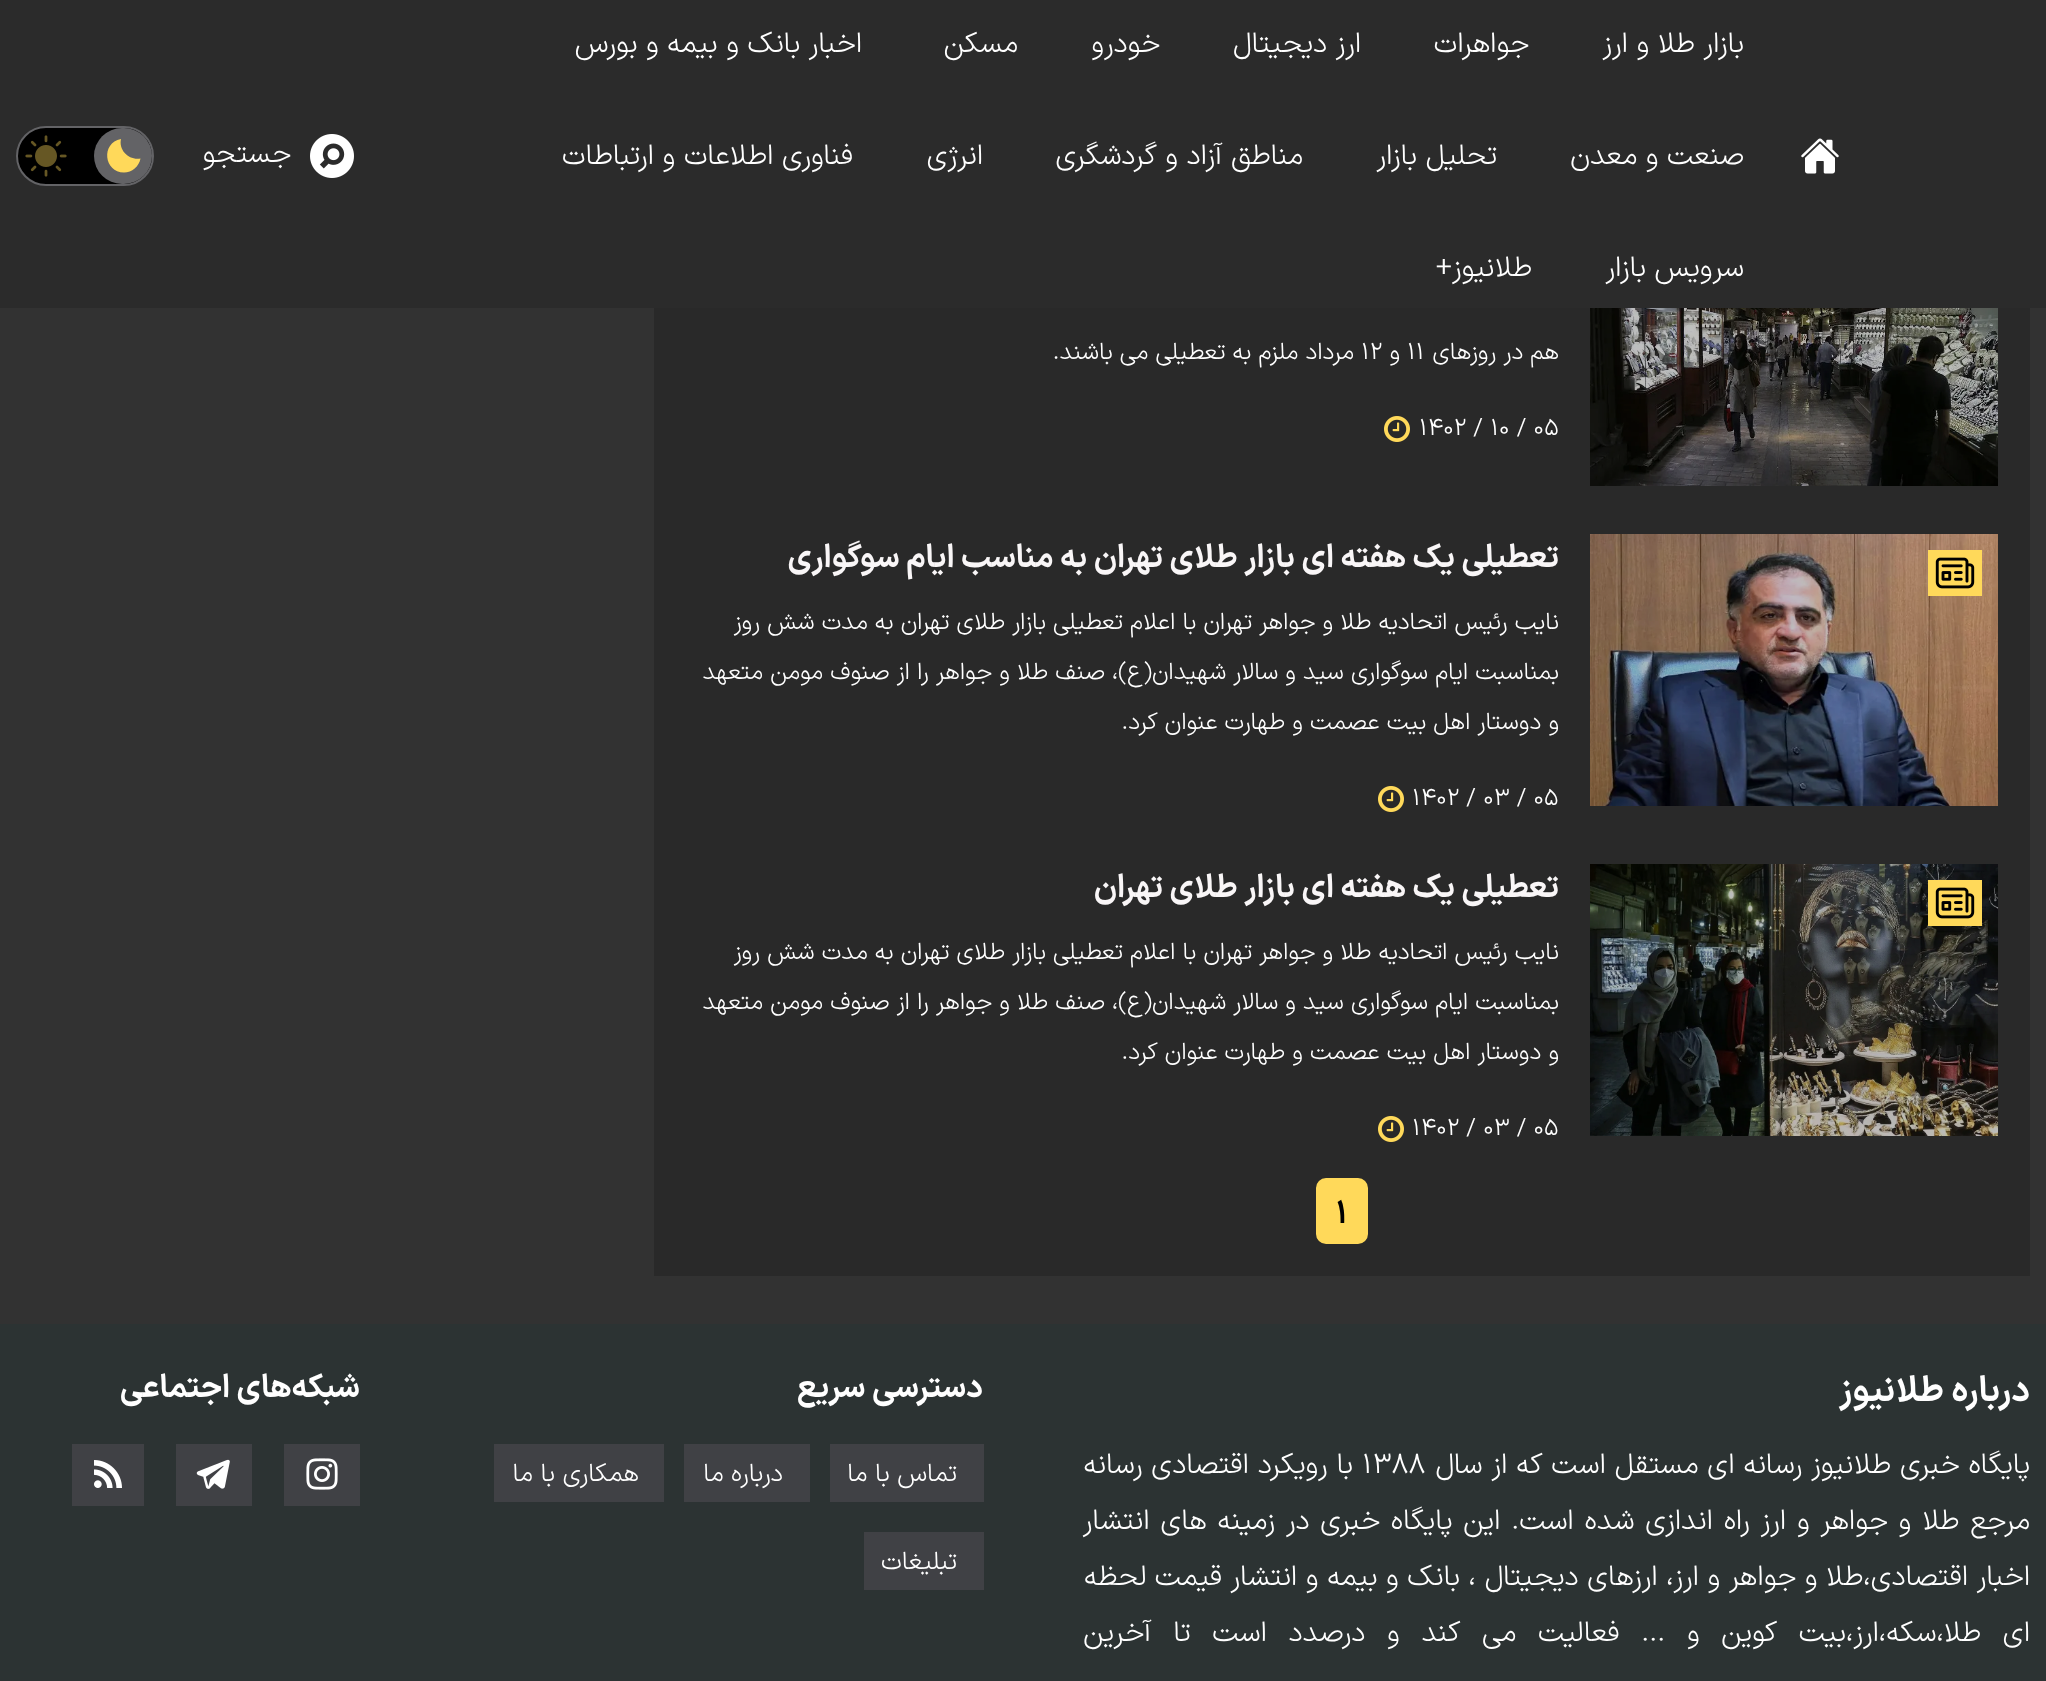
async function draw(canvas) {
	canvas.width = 2046;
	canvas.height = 1681;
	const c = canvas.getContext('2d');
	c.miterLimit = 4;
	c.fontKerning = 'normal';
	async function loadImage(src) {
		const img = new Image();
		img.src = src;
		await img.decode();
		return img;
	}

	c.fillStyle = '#323232';
	c.fillRect(0, 0, 2046, 1681);
	c.fillStyle = '#2b2b2b';
	c.fillRect(0, 0, 2046, 308);
	c.drawImage(await loadImage('img1.png'), 1801, 138, 38, 36);
	c.direction = 'rtl';
	c.font = '300 28.8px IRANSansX';
	c.fillStyle = '#fff';
	for (const [text, x, y] of [
		['بازار طلا و ارز', 1744, 52],
		['جواهرات', 1529, 52],
		['ارز دیجیتال', 1361, 52],
		['خودرو', 1160, 52],
		['مسکن', 1018, 52],
		['اخبار بانک و بیمه و بورس', 862, 52],
		['صنعت و معدن', 1744, 164],
		['تحلیل بازار', 1497, 164],
		['مناطق آزاد و گردشگری', 1303, 164],
		['انرژی', 983, 164],
		['فناوری اطلاعات و ارتباطات', 853, 164],
		['سرویس بازار', 1744, 276],
		['طلانیوز+', 1532, 276],
	]) {
		c.fillText(text, x, y);
	}
	c.drawImage(await loadImage('img2.png'), 310, 134, 44, 44);
	c.fillText('جستجو', 291, 162);
	c.fillStyle = '#000';
	c.beginPath();
	c.roundRect(17, 127, 136, 58, 29);
	c.fill();
	c.strokeStyle = '#636366';
	c.lineWidth = 2;
	c.stroke();
	c.fillStyle = '#636366';
	c.beginPath();
	c.roundRect(94, 128, 58, 56, 28);
	c.fill();
	c.fillStyle = '#ffd95a';
	c.beginPath();
	c.moveTo(124, 172.5);
	c.bezierCurveTo(104, 172.5, 100.5, 143, 121, 139);
	c.bezierCurveTo(118.5, 150.5, 129, 160.5, 140.5, 158.5);
	c.bezierCurveTo(139, 166.5, 132, 172.5, 124, 172.5);
	c.closePath();
	c.fill();
	c.drawImage(await loadImage('img3.png'), 25, 135, 42, 42);
	c.fillStyle = '#292929';
	c.fillRect(654, 308, 1376, 968);
	c.drawImage(await loadImage('img4.png'), 1590, 308, 408, 178);
	c.font = '300 24px IRANSansX';
	c.fillStyle = '#fff';
	c.fillText('هم در روزهای', 1559, 359);
	c.direction = 'ltr';
	c.fillText('۱۱', 1407, 359);
	c.direction = 'rtl';
	c.fillText('و', 1400, 359);
	c.direction = 'ltr';
	c.fillText('۱۲', 1361, 359);
	c.direction = 'rtl';
	c.fillText('مرداد ملزم به تعطیلی می باشند.', 1354, 359);
	c.direction = 'ltr';
	c.fillText('۱۴۰۲ / ۱۰ / ۰۵', 1419, 435);
	c.drawImage(await loadImage('img5.png'), 1384, 416, 26, 26);
	c.drawImage(await loadImage('img6.png'), 1590, 534, 408, 272);
	c.fillStyle = '#ffd95a';
	c.fillRect(1928, 550, 54, 46);
	c.drawImage(await loadImage('img7.png'), 1935, 557, 40, 32);
	c.direction = 'rtl';
	c.font = 'bold 32px IRANSansX';
	c.fillStyle = '#f9f6f7';
	c.fillText('تعطیلی یک هفته ای بازار طلای تهران به مناسب ایام سوگواری', 1559, 567);
	c.font = '300 24px IRANSansX';
	c.fillStyle = '#fff';
	for (const [text, x, y] of [
		['نایب رئیس اتحادیه طلا و جواهر تهران با اعلام تعطیلی بازار طلای تهران به مدت شش روز', 1559, 629],
		['بمناسبت ایام سوگواری سید و سالار شهیدان(ع)، صنف طلا و جواهر را از صنوف مومن متعهد', 1559, 679],
		['و دوستار اهل بیت عصمت و طهارت عنوان کرد.', 1559, 729],
	]) {
		c.fillText(text, x, y);
	}
	c.direction = 'ltr';
	c.fillText('۱۴۰۲ / ۰۳ / ۰۵', 1412, 805);
	c.drawImage(await loadImage('img5.png'), 1378, 786, 26, 26);
	c.drawImage(await loadImage('img8.png'), 1590, 864, 408, 272);
	c.fillStyle = '#ffd95a';
	c.fillRect(1928, 880, 54, 46);
	c.drawImage(await loadImage('img7.png'), 1935, 887, 40, 32);
	c.direction = 'rtl';
	c.font = 'bold 32px IRANSansX';
	c.fillStyle = '#f9f6f7';
	c.fillText('تعطیلی یک هفته ای بازار طلای تهران', 1559, 897);
	c.font = '300 24px IRANSansX';
	c.fillStyle = '#fff';
	for (const [text, x, y] of [
		['نایب رئیس اتحادیه طلا و جواهر تهران با اعلام تعطیلی بازار طلای تهران به مدت شش روز', 1559, 959],
		['بمناسبت ایام سوگواری سید و سالار شهیدان(ع)، صنف طلا و جواهر را از صنوف مومن متعهد', 1559, 1009],
		['و دوستار اهل بیت عصمت و طهارت عنوان کرد.', 1559, 1059],
	]) {
		c.fillText(text, x, y);
	}
	c.direction = 'ltr';
	c.fillText('۱۴۰۲ / ۰۳ / ۰۵', 1412, 1135);
	c.drawImage(await loadImage('img5.png'), 1378, 1116, 26, 26);
	c.fillStyle = '#ffd95a';
	c.beginPath();
	c.roundRect(1317, 1179, 50, 64, 9);
	c.fill();
	c.strokeStyle = '#ffd95a';
	c.stroke();
	c.font = 'bold 32px IRANSansX';
	c.fillStyle = '#000';
	c.fillText('۱', 1336, 1223);
	c.fillStyle = '#2c3333';
	c.fillRect(0, 1324, 2046, 357);
	c.direction = 'rtl';
	c.font = 'bold 35.25px IRANSansX';
	c.fillStyle = '#fff';
	c.fillText('درباره طلانیوز', 2030, 1401);
	c.wordSpacing = '0.25px';
	c.font = '300 28.8px IRANSansX';
	c.fillText('پایگاه خبری طلانیوز رسانه ای مستقل است که از سال', 2030, 1473);
	c.wordSpacing = '0px';
	c.direction = 'ltr';
	c.fillText('۱۳۸۸', 1362, 1473);
	c.wordSpacing = '0.25px';
	c.direction = 'rtl';
	c.fillText('با رویکرد اقتصادی رسانه', 1353, 1473);
	c.wordSpacing = '2.25px';
	c.fillText('مرجع طلا و جواهر و ارز راه اندازی شده است. این پایگاه خبری در زمینه های انتشار', 2030, 1529);
	c.wordSpacing = '0px';
	c.fillText('اخبار اقتصادی،طلا و جواهر و ارز، ارزهای دیجیتال ، بانک و بیمه و انتشار قیمت لحظه', 2030, 1585);
	c.wordSpacing = '13.1px';
	c.fillText('ای طلا،سکه،ارز،بیت کوین و ... فعالیت می کند و درصدد است تا آخرین', 2030, 1641);
	c.wordSpacing = '0px';
	c.font = 'bold 32px IRANSansX';
	c.fillText('دسترسی سریع', 983, 1397);
	c.fillStyle = '#404145';
	c.fillRect(830, 1444, 154, 58);
	c.font = '300 25.5px IRANSansX';
	c.fillStyle = '#fff';
	c.fillText('تماس‌ با‌ ما', 957, 1481);
	c.fillStyle = '#404145';
	c.fillRect(684, 1444, 126, 58);
	c.fillStyle = '#fff';
	c.fillText('درباره ما', 783, 1481);
	c.fillStyle = '#404145';
	c.fillRect(494, 1444, 170, 58);
	c.fillStyle = '#fff';
	c.fillText('همکاری با ما', 639, 1481);
	c.fillStyle = '#404145';
	c.fillRect(864, 1532, 120, 58);
	c.fillStyle = '#fff';
	c.fillText('تبلیغات', 957, 1569);
	c.font = 'bold 32px IRANSansX';
	c.fillText('شبکه‌های اجتماعی', 360, 1397);
	c.fillStyle = '#404145';
	c.fillRect(284, 1444, 76, 62);
	c.drawImage(await loadImage('img9.png'), 306, 1458, 32, 32);
	c.fillRect(176, 1444, 76, 62);
	c.drawImage(await loadImage('img10.png'), 196, 1459, 34, 30);
	c.fillRect(72, 1444, 72, 62);
	c.drawImage(await loadImage('img11.png'), 94, 1460, 28, 28);
}

draw(document.querySelector('canvas'));
